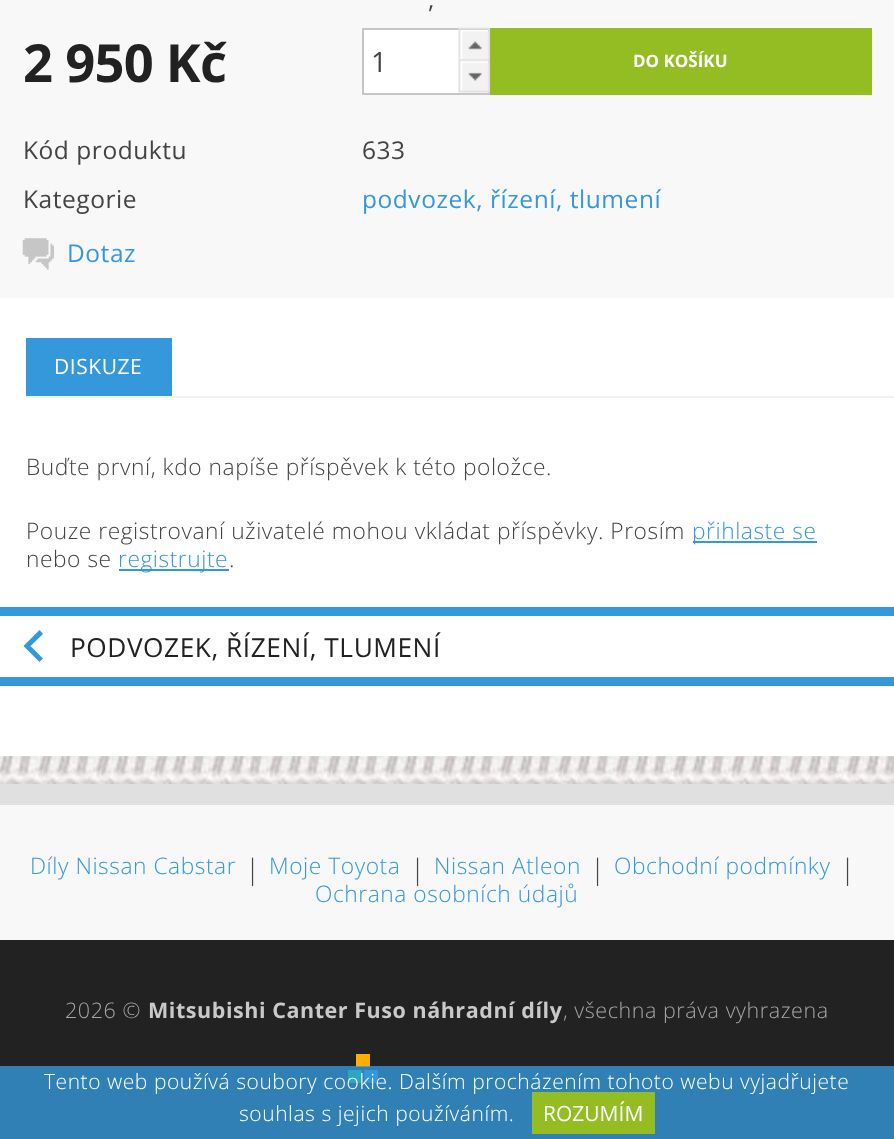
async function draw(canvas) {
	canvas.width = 894;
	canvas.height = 1139;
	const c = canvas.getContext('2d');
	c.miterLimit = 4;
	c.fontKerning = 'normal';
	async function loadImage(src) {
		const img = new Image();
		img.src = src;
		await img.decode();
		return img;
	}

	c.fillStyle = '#fff';
	c.fillRect(0, 0, 894, 1139);
	c.drawImage(await loadImage('img1.png'), 0, 756, 894, 28);
	c.fillStyle = '#f8f8f8';
	c.fillRect(0, 0, 894, 298);
	c.letterSpacing = '0.55px';
	c.font = '24.5px Open Sans';
	c.fillStyle = '#444';
	c.fillText(',', 428, 8);
	c.letterSpacing = '-0.75px';
	c.font = 'bold 52.5px Open Sans';
	c.fillStyle = '#222';
	c.fillText('2 950 Kč', 23, 82);
	c.fillStyle = '#fff';
	c.beginPath();
	c.rect(363, 29, 126, 65);
	c.fill();
	c.strokeStyle = '#c6c6c6';
	c.lineWidth = 2;
	c.stroke();
	c.letterSpacing = '0px';
	c.font = '28px Open Sans';
	c.fillStyle = '#444';
	c.fillText('1', 371, 72);
	c.drawImage(await loadImage('img2.png'), 458, 27, 32, 33);
	c.drawImage(await loadImage('img3.png'), 458, 59, 32, 34);
	c.fillStyle = '#94bd23';
	c.fillRect(490, 28, 382, 67);
	c.font = 'bold 17px Open Sans';
	c.fillStyle = '#fff';
	c.fillText('DO KOŠÍKU', 633, 67);
	c.letterSpacing = '0.55px';
	c.font = '24.5px Open Sans';
	c.fillStyle = '#444';
	for (const [text, x, y] of [
		['Kód produktu', 23, 159],
		['633', 362, 159],
		['Kategorie', 23, 208],
	]) {
		c.fillText(text, x, y);
	}
	c.fillStyle = '#3498db';
	c.fillText('podvozek, řízení, tlumení', 362, 208);
	c.drawImage(await loadImage('img4.png'), 22, 238, 32, 32);
	c.fillText('Dotaz', 67, 262);
	c.fillStyle = '#f2f2f2';
	c.fillRect(26, 396, 868, 2);
	c.fillStyle = '#3498db';
	c.fillRect(26, 338, 146, 58);
	c.font = '21px Open Sans';
	c.fillStyle = '#fff';
	c.fillText('DISKUZE', 54, 374);
	c.font = '300 22.75px Open Sans';
	c.fillStyle = '#444';
	c.fillText('Buďte první, kdo napíše příspěvek k této položce.', 26, 475);
	c.fillText('Pouze registrovaní uživatelé mohou vkládat příspěvky. Prosím', 26, 539);
	c.fillStyle = '#3498db';
	c.fillRect(693, 541, 124, 2);
	c.fillText('přihlaste se', 692, 539);
	c.fillStyle = '#444';
	c.fillText('nebo se', 26, 567);
	c.fillStyle = '#3498db';
	c.fillRect(119, 569, 110, 2);
	c.fillText('registrujte', 118, 567);
	c.fillStyle = '#444';
	c.fillText('.', 229, 567);
	c.fillStyle = '#3498db';
	c.fillRect(0, 607, 894, 9);
	c.fillRect(0, 677, 894, 9);
	c.beginPath();
	c.moveTo(39.5, 630);
	c.lineTo(23.5, 646);
	c.lineTo(39.5, 662);
	c.lineTo(43, 658.5);
	c.lineTo(30.5, 646);
	c.lineTo(43, 634);
	c.closePath();
	c.fill();
	c.font = '26.25px Open Sans';
	c.fillStyle = '#222';
	c.fillText('PODVOZEK, ŘÍZENÍ, TLUMENÍ', 70, 657);
	c.fillStyle = '#f8f8f8';
	c.fillRect(0, 805, 894, 135);
	c.fillStyle = '#e0e0e0';
	c.fillRect(0, 784, 894, 21);
	c.font = '300 22.75px Open Sans';
	c.fillStyle = '#3498db';
	c.fillText('Díly Nissan Cabstar', 30, 874);
	c.font = '300 28px Open Sans';
	c.fillStyle = '#444';
	c.fillText('|', 245, 879);
	c.font = '300 22.75px Open Sans';
	c.fillStyle = '#3498db';
	c.fillText('Moje Toyota', 269, 874);
	c.font = '300 28px Open Sans';
	c.fillStyle = '#444';
	c.fillText('|', 410, 879);
	c.font = '300 22.75px Open Sans';
	c.fillStyle = '#3498db';
	c.fillText('Nissan Atleon', 434, 874);
	c.font = '300 28px Open Sans';
	c.fillStyle = '#444';
	c.fillText('|', 590, 879);
	c.font = '300 22.75px Open Sans';
	c.fillStyle = '#3498db';
	c.fillText('Obchodní podmínky', 614, 874);
	c.font = '300 28px Open Sans';
	c.fillStyle = '#444';
	c.fillText('|', 840, 879);
	c.font = '300 22.75px Open Sans';
	c.fillStyle = '#3498db';
	c.fillText('Ochrana osobních údajů', 315, 902);
	c.fillStyle = '#222';
	c.fillRect(0, 940, 894, 199);
	c.font = '300 21.5px Open Sans';
	c.fillStyle = '#a6a6a6';
	c.fillText('2026 ©', 65, 1018);
	c.font = 'bold 21.5px Open Sans';
	c.fillStyle = '#c9c9c9';
	c.fillText('Mitsubishi Canter Fuso náhradní díly', 148, 1018);
	c.font = '300 21.5px Open Sans';
	c.fillStyle = '#a6a6a6';
	c.fillText(', všechna práva vyhrazena', 563, 1018);
	for (const [x, y, w, h, color] of [
		[356, 1054, 14, 13, '#fcaf00'],
		[348, 1070, 14, 13, '#00e25a'],
		[364, 1070, 14, 13, '#3b88ff'],
		[0, 1066, 894, 73, '#3498dbcc'],
	]) {
		c.fillStyle = color;
		c.fillRect(x, y, w, h);
	}
	c.font = '300 21px Open Sans';
	c.fillStyle = '#fff';
	c.fillText('Tento web používá soubory cookie. Dalším procházením tohoto webu vyjadřujete', 44, 1089);
	c.fillText('souhlas s jejich používáním.', 239, 1121);
	c.fillStyle = '#94bd23';
	c.fillRect(532, 1092, 123, 42);
	c.letterSpacing = '0px';
	c.font = '21px Open Sans';
	c.fillStyle = '#fff';
	c.fillText('ROZUMÍM', 543, 1121);
}

draw(document.querySelector('canvas'));
